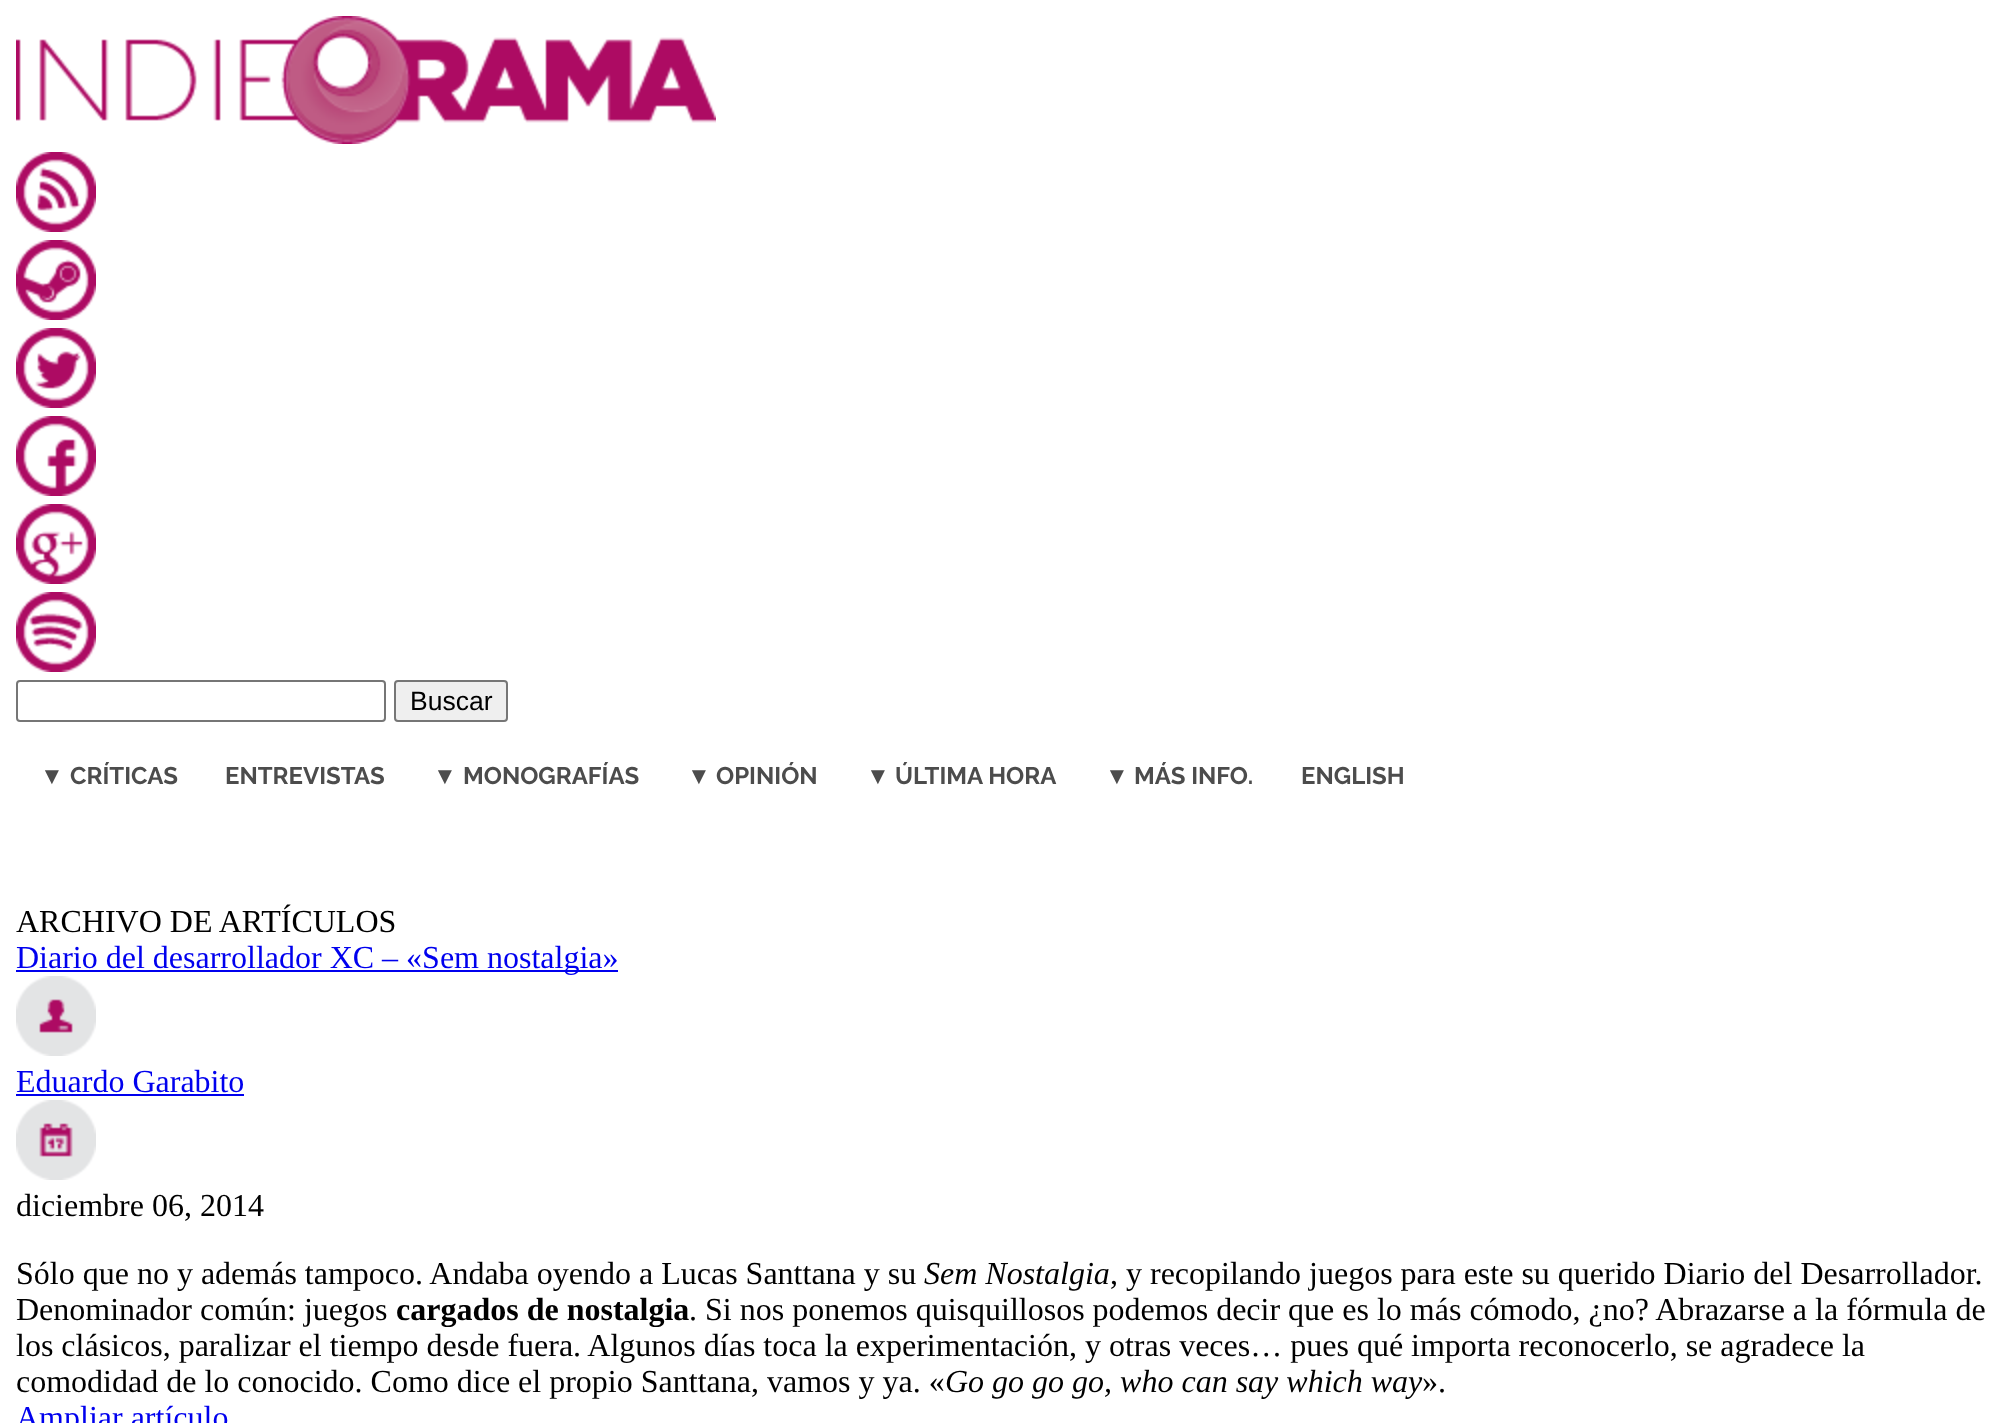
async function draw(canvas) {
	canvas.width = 2011;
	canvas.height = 1423;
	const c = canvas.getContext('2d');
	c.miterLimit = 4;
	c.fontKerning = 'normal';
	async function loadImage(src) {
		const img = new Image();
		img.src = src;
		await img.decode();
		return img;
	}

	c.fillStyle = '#fff';
	c.fillRect(0, 0, 2011, 1423);
	c.drawImage(await loadImage('img1.png'), 16, 16, 700, 128);
	c.drawImage(await loadImage('img2.png'), 16, 152, 80, 80);
	c.drawImage(await loadImage('img3.png'), 16, 240, 80, 80);
	c.drawImage(await loadImage('img4.png'), 16, 328, 80, 80);
	c.drawImage(await loadImage('img5.png'), 16, 416, 80, 80);
	c.drawImage(await loadImage('img6.png'), 16, 504, 80, 80);
	c.drawImage(await loadImage('img7.png'), 16, 592, 80, 80);
	c.beginPath();
	c.roundRect(17, 681, 368, 40, 3);
	c.strokeStyle = '#767676';
	c.lineWidth = 2;
	c.stroke();
	c.fillStyle = '#efefef';
	c.beginPath();
	c.roundRect(395, 681, 112, 40, 3);
	c.fill();
	c.stroke();
	c.font = '26.5px Liberation Sans';
	c.fillStyle = '#000';
	c.fillText('Buscar', 410, 710);
	c.font = 'bold 24px Liberation Sans';
	c.fillStyle = '#4c4c4c';
	c.fillText('▼', 40, 784);
	c.font = 'bold 24px Raleway';
	c.fillText('CRÍTICAS', 70, 784);
	c.fillText('ENTREVISTAS', 225, 784);
	c.font = 'bold 24px Liberation Sans';
	c.fillText('▼', 433, 784);
	c.font = 'bold 24px Raleway';
	c.fillText('MONOGRAFÍAS', 463, 784);
	c.font = 'bold 24px Liberation Sans';
	c.fillText('▼', 687, 784);
	c.font = 'bold 24px Raleway';
	c.fillText('OPINIÓN', 716, 784);
	c.font = 'bold 24px Liberation Sans';
	c.fillText('▼', 866, 784);
	c.font = 'bold 24px Raleway';
	c.fillText('ÚLTIMA HORA', 895, 784);
	c.font = 'bold 24px Liberation Sans';
	c.fillText('▼', 1105, 784);
	c.font = 'bold 24px Raleway';
	c.fillText('MÁS INFO.', 1134, 784);
	c.fillText('ENGLISH', 1301, 784);
	c.font = '32px Liberation Serif';
	c.fillStyle = '#000';
	c.fillText('ARCHIVO DE ARTÍCULOS', 16, 932);
	c.fillStyle = '#00e';
	c.fillRect(16, 970, 602, 2);
	c.fillText('Diario del desarrollador XC – «Sem nostalgia»', 16, 968);
	c.drawImage(await loadImage('img8.png'), 16, 976, 80, 80);
	c.fillText('Eduardo Garabito', 16, 1092);
	c.fillRect(16, 1094, 228, 2);
	c.drawImage(await loadImage('img9.png'), 16, 1100, 80, 80);
	c.fillStyle = '#000';
	c.fillText('diciembre 06, 2014', 16, 1216);
	c.fillText('Sólo que no y además tampoco. Andaba oyendo a Lucas Santtana y su', 16, 1284);
	c.font = 'italic 32px Liberation Serif';
	c.fillText('Sem Nostalgia', 924, 1284);
	c.font = '32px Liberation Serif';
	c.fillText(', y recopilando juegos para este su querido Diario del Desarrollador.', 1110, 1284);
	c.fillText('Denominador común: juegos', 16, 1320);
	c.font = 'bold 32px Liberation Serif';
	c.fillText('cargados de nostalgia', 396, 1320);
	c.font = '32px Liberation Serif';
	for (const [text, x, y] of [
		['. Si nos ponemos quisquillosos podemos decir que es lo más cómodo, ¿no? Abrazarse a la fórmula de', 689, 1320],
		['los clásicos, paralizar el tiempo desde fuera. Algunos días toca la experimentación, y otras veces… pues qué importa reconocerlo, se agradece la', 16, 1356],
		['comodidad de lo conocido. Como dice el propio Santtana, vamos y ya. «', 16, 1392],
	]) {
		c.fillText(text, x, y);
	}
	c.font = 'italic 32px Liberation Serif';
	c.fillText('Go go go go, who can say which way', 945, 1392);
	c.font = '32px Liberation Serif';
	c.fillText('».', 1422, 1392);
	c.fillStyle = '#00e';
	c.fillText('Ampliar artículo', 16, 1428);
}

draw(document.querySelector('canvas'));
